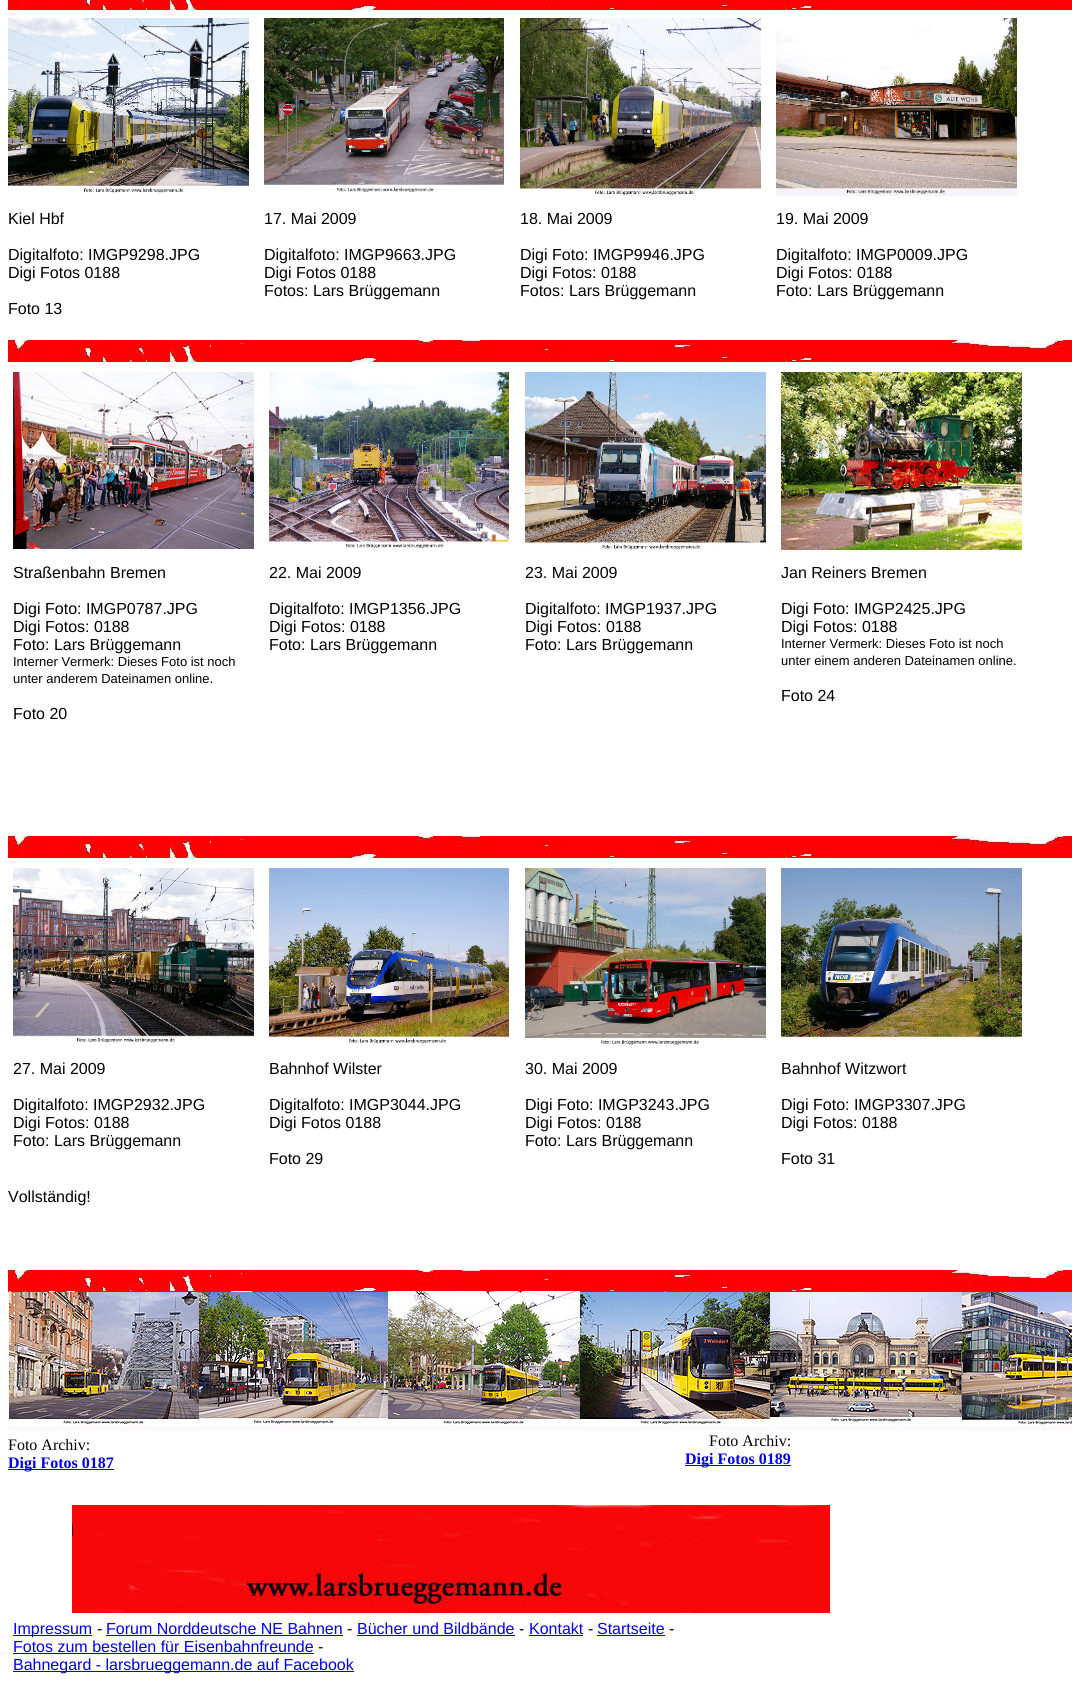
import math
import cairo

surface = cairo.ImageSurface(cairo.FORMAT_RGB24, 1072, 1687)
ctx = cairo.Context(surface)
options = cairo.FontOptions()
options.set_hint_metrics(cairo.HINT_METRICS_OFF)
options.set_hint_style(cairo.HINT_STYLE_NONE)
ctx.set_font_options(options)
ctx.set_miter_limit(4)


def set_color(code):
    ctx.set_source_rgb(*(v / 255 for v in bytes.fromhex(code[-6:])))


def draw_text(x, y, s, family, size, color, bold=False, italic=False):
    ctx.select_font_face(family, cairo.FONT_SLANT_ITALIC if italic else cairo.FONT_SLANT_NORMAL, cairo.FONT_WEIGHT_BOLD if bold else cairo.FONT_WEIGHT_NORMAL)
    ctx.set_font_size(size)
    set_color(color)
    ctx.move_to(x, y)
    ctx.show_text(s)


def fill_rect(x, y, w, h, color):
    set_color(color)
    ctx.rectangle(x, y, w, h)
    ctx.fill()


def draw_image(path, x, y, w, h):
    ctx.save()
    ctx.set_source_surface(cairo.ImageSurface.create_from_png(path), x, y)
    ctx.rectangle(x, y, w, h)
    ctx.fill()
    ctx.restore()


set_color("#ffffff")
ctx.paint()
draw_image("assets/img1.png", 8, 0, 1064, 10)
draw_image("assets/img2.png", 8, 18, 241, 175)
draw_image("assets/img3.png", 264, 18, 240, 174)
draw_image("assets/img4.png", 520, 18, 241, 177)
draw_image("assets/img5.png", 776, 18, 241, 178)
draw_text(8, 224, "Kiel Hbf", "Liberation Sans", 16, "#000000")
draw_text(8, 260, "Digitalfoto: IMGP9298.JPG", "Liberation Sans", 16, "#000000")
draw_text(8, 278, "Digi Fotos 0188", "Liberation Sans", 16, "#000000")
draw_text(8, 314, "Foto 13", "Liberation Sans", 16, "#000000")
draw_text(264, 224, "17. Mai 2009", "Liberation Sans", 16, "#000000")
draw_text(264, 260, "Digitalfoto: IMGP9663.JPG", "Liberation Sans", 16, "#000000")
draw_text(264, 278, "Digi Fotos 0188", "Liberation Sans", 16, "#000000")
draw_text(264, 296, "Fotos: Lars Brüggemann", "Liberation Sans", 16, "#000000")
draw_text(520, 224, "18. Mai 2009", "Liberation Sans", 16, "#000000")
draw_text(520, 260, "Digi Foto: IMGP9946.JPG", "Liberation Sans", 16, "#000000")
draw_text(520, 278, "Digi Fotos: 0188", "Liberation Sans", 16, "#000000")
draw_text(520, 296, "Fotos: Lars Brüggemann", "Liberation Sans", 16, "#000000")
draw_text(776, 224, "19. Mai 2009", "Liberation Sans", 16, "#000000")
draw_text(776, 260, "Digitalfoto: IMGP0009.JPG", "Liberation Sans", 16, "#000000")
draw_text(776, 278, "Digi Fotos: 0188", "Liberation Sans", 16, "#000000")
draw_text(776, 296, "Foto: Lars Brüggemann", "Liberation Sans", 16, "#000000")
draw_image("assets/img6.png", 8, 340, 1064, 22)
draw_image("assets/img7.png", 13, 372, 241, 177)
draw_image("assets/img8.png", 269, 372, 240, 176)
draw_image("assets/img9.png", 525, 372, 241, 178)
draw_image("assets/img10.png", 781, 372, 241, 178)
draw_text(13, 578, "Straßenbahn Bremen", "Liberation Sans", 16, "#000000")
draw_text(13, 614, "Digi Foto: IMGP0787.JPG", "Liberation Sans", 16, "#000000")
draw_text(13, 632, "Digi Fotos: 0188", "Liberation Sans", 16, "#000000")
draw_text(13, 650, "Foto: Lars Brüggemann", "Liberation Sans", 16, "#000000")
draw_text(13, 666, "Interner Vermerk: Dieses Foto ist noch", "Liberation Sans", 13, "#000000")
draw_text(13, 683, "unter anderem Dateinamen online.", "Liberation Sans", 13, "#000000")
draw_text(13, 719, "Foto 20", "Liberation Sans", 16, "#000000")
draw_text(269, 578, "22. Mai 2009", "Liberation Sans", 16, "#000000")
draw_text(269, 614, "Digitalfoto: IMGP1356.JPG", "Liberation Sans", 16, "#000000")
draw_text(269, 632, "Digi Fotos: 0188", "Liberation Sans", 16, "#000000")
draw_text(269, 650, "Foto: Lars Brüggemann", "Liberation Sans", 16, "#000000")
draw_text(525, 578, "23. Mai 2009", "Liberation Sans", 16, "#000000")
draw_text(525, 614, "Digitalfoto: IMGP1937.JPG", "Liberation Sans", 16, "#000000")
draw_text(525, 632, "Digi Fotos: 0188", "Liberation Sans", 16, "#000000")
draw_text(525, 650, "Foto: Lars Brüggemann", "Liberation Sans", 16, "#000000")
draw_text(781, 578, "Jan Reiners Bremen", "Liberation Sans", 16, "#000000")
draw_text(781, 614, "Digi Foto: IMGP2425.JPG", "Liberation Sans", 16, "#000000")
draw_text(781, 632, "Digi Fotos: 0188", "Liberation Sans", 16, "#000000")
draw_text(781, 648, "Interner Vermerk: Dieses Foto ist noch", "Liberation Sans", 13, "#000000")
draw_text(781, 665, "unter einem anderen Dateinamen online.", "Liberation Sans", 13, "#000000")
draw_text(781, 701, "Foto 24", "Liberation Sans", 16, "#000000")
draw_image("assets/img6.png", 8, 836, 1064, 22)
draw_image("assets/img11.png", 13, 868, 241, 175)
draw_image("assets/img12.png", 269, 868, 240, 176)
draw_image("assets/img13.png", 525, 868, 241, 177)
draw_image("assets/img14.png", 781, 868, 241, 171)
draw_text(13, 1074, "27. Mai 2009", "Liberation Sans", 16, "#000000")
draw_text(13, 1110, "Digitalfoto: IMGP2932.JPG", "Liberation Sans", 16, "#000000")
draw_text(13, 1128, "Digi Fotos: 0188", "Liberation Sans", 16, "#000000")
draw_text(13, 1146, "Foto: Lars Brüggemann", "Liberation Sans", 16, "#000000")
draw_text(269, 1074, "Bahnhof Wilster", "Liberation Sans", 16, "#000000")
draw_text(269, 1110, "Digitalfoto: IMGP3044.JPG", "Liberation Sans", 16, "#000000")
draw_text(269, 1128, "Digi Fotos 0188", "Liberation Sans", 16, "#000000")
draw_text(269, 1164, "Foto 29", "Liberation Sans", 16, "#000000")
draw_text(525, 1074, "30. Mai 2009", "Liberation Sans", 16, "#000000")
draw_text(525, 1110, "Digi Foto: IMGP3243.JPG", "Liberation Sans", 16, "#000000")
draw_text(525, 1128, "Digi Fotos: 0188", "Liberation Sans", 16, "#000000")
draw_text(525, 1146, "Foto: Lars Brüggemann", "Liberation Sans", 16, "#000000")
draw_text(781, 1074, "Bahnhof Witzwort", "Liberation Sans", 16, "#000000")
draw_text(781, 1110, "Digi Foto: IMGP3307.JPG", "Liberation Sans", 16, "#000000")
draw_text(781, 1128, "Digi Fotos: 0188", "Liberation Sans", 16, "#000000")
draw_text(781, 1164, "Foto 31", "Liberation Sans", 16, "#000000")
draw_text(8, 1202, "Vollständig!", "Liberation Sans", 16, "#000000")
draw_image("assets/img15.png", 8, 1270, 1064, 161)
draw_text(8, 1450, "Foto Archiv:", "Liberation Serif", 16, "#000000")
fill_rect(8, 1469, 106, 1, "#0000ee")
draw_text(8, 1468, "Digi Fotos 0187", "Liberation Serif", 16, "#0000ee", bold=True)
draw_text(709, 1446, "Foto Archiv:", "Liberation Serif", 16, "#000000")
fill_rect(685, 1465, 106, 1, "#0000ee")
draw_text(685, 1464, "Digi Fotos 0189", "Liberation Serif", 16, "#0000ee", bold=True)
draw_image("assets/img16.png", 72, 1505, 758, 108)
fill_rect(13, 1635, 79, 1, "#0000ee")
draw_text(13, 1634, "Impressum", "Liberation Sans", 16, "#0000ee")
draw_text(97, 1634, "-", "Liberation Sans", 16, "#000000")
draw_text(106, 1634, "Forum Norddeutsche NE Bahnen", "Liberation Sans", 16, "#0000ee")
fill_rect(106, 1635, 237, 1, "#0000ee")
draw_text(347, 1634, "-", "Liberation Sans", 16, "#000000")
draw_text(357, 1634, "Bücher und Bildbände", "Liberation Sans", 16, "#0000ee")
fill_rect(357, 1635, 158, 1, "#0000ee")
draw_text(519, 1634, "-", "Liberation Sans", 16, "#000000")
draw_text(529, 1634, "Kontakt", "Liberation Sans", 16, "#0000ee")
fill_rect(529, 1635, 54, 1, "#0000ee")
draw_text(588, 1634, "-", "Liberation Sans", 16, "#000000")
draw_text(597, 1634, "Startseite", "Liberation Sans", 16, "#0000ee")
fill_rect(597, 1635, 68, 1, "#0000ee")
draw_text(669, 1634, "-", "Liberation Sans", 16, "#000000")
draw_text(13, 1652, "Fotos zum bestellen für Eisenbahnfreunde", "Liberation Sans", 16, "#0000ee")
fill_rect(13, 1653, 301, 1, "#0000ee")
draw_text(318, 1652, "-", "Liberation Sans", 16, "#000000")
fill_rect(13, 1671, 341, 1, "#0000ee")
draw_text(13, 1670, "Bahnegard - larsbrueggemann.de auf Facebook", "Liberation Sans", 16, "#0000ee")
surface.write_to_png("output.png")
